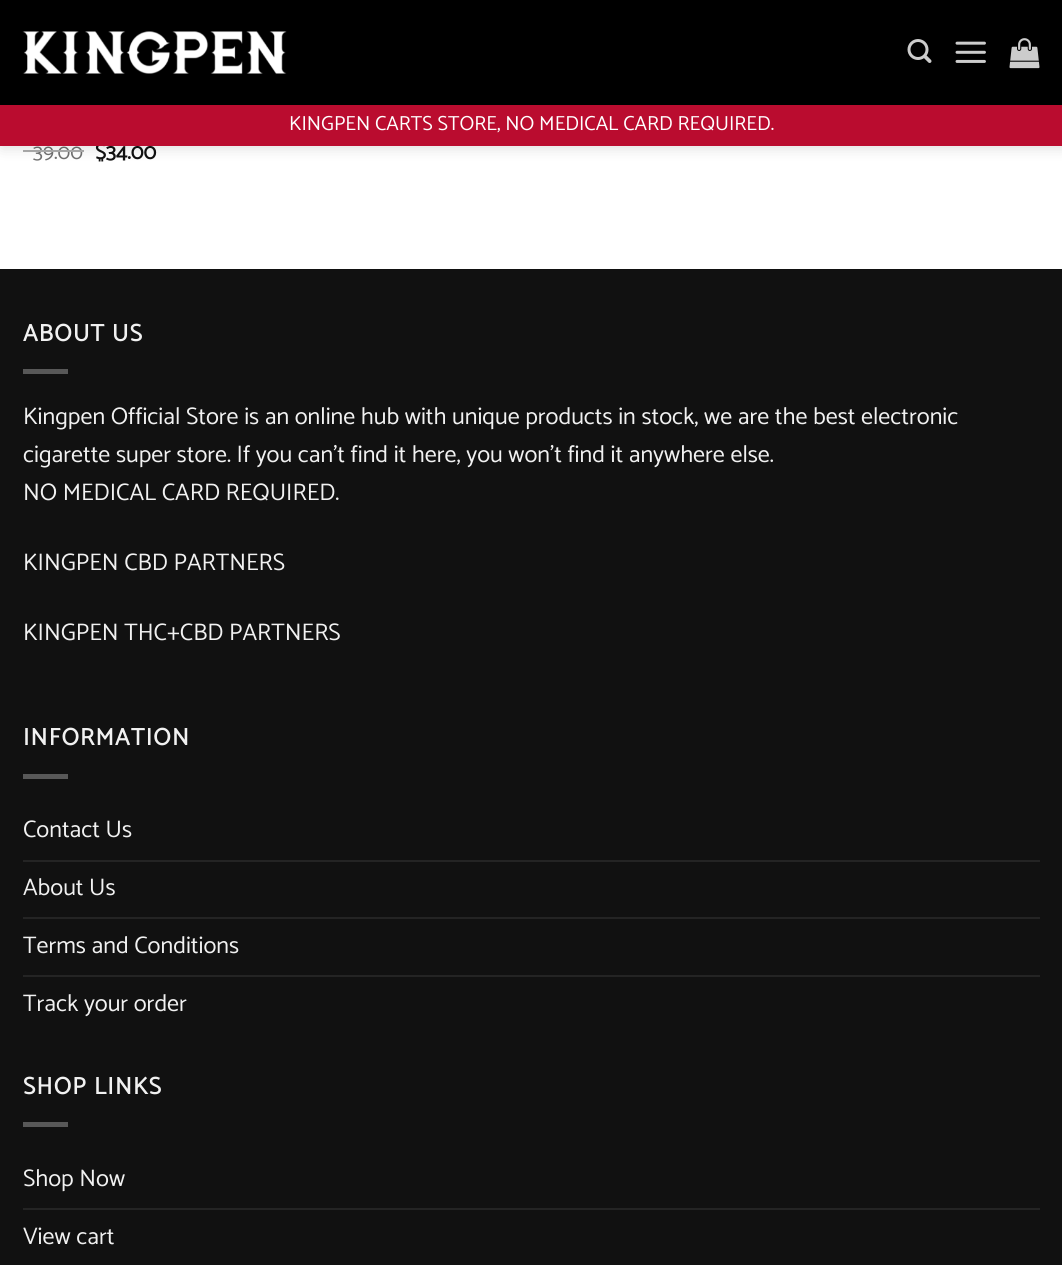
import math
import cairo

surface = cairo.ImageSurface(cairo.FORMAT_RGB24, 1062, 1265)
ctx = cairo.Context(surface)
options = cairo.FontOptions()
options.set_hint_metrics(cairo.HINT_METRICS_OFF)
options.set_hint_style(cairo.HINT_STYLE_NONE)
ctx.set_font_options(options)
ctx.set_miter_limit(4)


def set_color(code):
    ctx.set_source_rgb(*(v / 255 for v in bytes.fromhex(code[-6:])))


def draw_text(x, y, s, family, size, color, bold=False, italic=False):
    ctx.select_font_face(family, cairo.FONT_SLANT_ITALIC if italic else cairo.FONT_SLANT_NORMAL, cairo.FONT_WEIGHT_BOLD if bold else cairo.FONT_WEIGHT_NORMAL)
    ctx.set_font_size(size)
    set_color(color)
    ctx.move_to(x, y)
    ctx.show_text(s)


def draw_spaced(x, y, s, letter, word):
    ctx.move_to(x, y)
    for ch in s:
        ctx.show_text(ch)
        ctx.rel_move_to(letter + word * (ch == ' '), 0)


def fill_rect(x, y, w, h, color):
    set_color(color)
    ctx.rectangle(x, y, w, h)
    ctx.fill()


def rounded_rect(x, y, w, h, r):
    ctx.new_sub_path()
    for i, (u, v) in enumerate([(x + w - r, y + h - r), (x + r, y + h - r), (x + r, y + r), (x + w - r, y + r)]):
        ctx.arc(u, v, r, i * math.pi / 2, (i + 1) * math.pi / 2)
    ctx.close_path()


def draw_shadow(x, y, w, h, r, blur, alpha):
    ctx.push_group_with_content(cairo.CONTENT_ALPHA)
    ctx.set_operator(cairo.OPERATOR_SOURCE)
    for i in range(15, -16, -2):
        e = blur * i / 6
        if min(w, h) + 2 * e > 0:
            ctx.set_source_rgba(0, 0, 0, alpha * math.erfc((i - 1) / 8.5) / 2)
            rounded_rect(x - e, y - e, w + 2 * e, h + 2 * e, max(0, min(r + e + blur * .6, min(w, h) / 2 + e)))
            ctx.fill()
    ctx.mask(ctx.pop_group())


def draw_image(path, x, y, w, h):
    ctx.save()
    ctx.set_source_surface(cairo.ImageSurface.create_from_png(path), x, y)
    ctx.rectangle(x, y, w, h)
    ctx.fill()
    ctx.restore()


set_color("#ffffff")
ctx.paint()
fill_rect(23, 150, 10, 2, "#adadad")
draw_text(33, 159, "39.00", "Catamaran", 21.5, "#707070")
fill_rect(33, 150, 51, 2, "#adadad")
set_color("#000000")
draw_shadow(2, 2, 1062, 145, 0, 7.5, 0.15)
fill_rect(0, 0, 1062, 105, "#000000")
draw_image("assets/img1.png", 22, 31, 265, 43)
draw_image("assets/img2.png", 907, 39, 25, 24)
draw_image("assets/img3.png", 955, 41, 31, 22)
draw_image("assets/img4.png", 1009, 38, 31, 31)
draw_text(95, 159, "$34.00", "Catamaran", 21.5, "#111111", bold=True)
fill_rect(0, 105, 1062, 41, "#ba0c2f")
draw_text(289, 130, "KINGPEN CARTS STORE, NO MEDICAL CARD REQUIRED.", "Catamaran", 20.4, "#ffffff")
fill_rect(0, 269, 1062, 996, "#111111")
ctx.select_font_face("Catamaran", cairo.FONT_SLANT_NORMAL, cairo.FONT_WEIGHT_BOLD)
ctx.set_font_size(24)
set_color("#f1f1f1")
draw_spaced(23, 341, "ABOUT US", 1.25, 0)
fill_rect(23, 369, 45, 5, "#585858")
draw_text(23, 424, "Kingpen Official Store is an online hub with unique products in stock, we are the best electronic", "Catamaran", 24, "#f1f1f1")
draw_text(23, 462, "cigarette super store. If you can’t find it here, you won’t find it anywhere else.", "Catamaran", 24, "#f1f1f1")
draw_text(23, 500, "NO MEDICAL CARD REQUIRED.", "Catamaran", 24, "#f1f1f1")
draw_text(23, 570, "KINGPEN CBD PARTNERS", "Catamaran", 24, "#f1f1f1")
draw_text(23, 640, "KINGPEN THC+CBD PARTNERS", "Catamaran", 24, "#f1f1f1")
ctx.select_font_face("Catamaran", cairo.FONT_SLANT_NORMAL, cairo.FONT_WEIGHT_BOLD)
draw_spaced(23, 745, "INFORMATION", 1.25, 0)
fill_rect(23, 774, 45, 5, "#585858")
draw_text(23, 837, "Contact Us", "Catamaran", 24, "#f1f1f1")
fill_rect(23, 860, 1017, 2, "#242424")
draw_text(23, 895, "About Us", "Catamaran", 24, "#f1f1f1")
fill_rect(23, 917, 1017, 2, "#242424")
draw_text(23, 953, "Terms and Conditions", "Catamaran", 24, "#f1f1f1")
fill_rect(23, 975, 1017, 2, "#242424")
draw_text(23, 1011, "Track your order", "Catamaran", 24, "#f1f1f1")
ctx.select_font_face("Catamaran", cairo.FONT_SLANT_NORMAL, cairo.FONT_WEIGHT_BOLD)
draw_spaced(23, 1094, "SHOP LINKS", 1.25, 0)
fill_rect(23, 1122, 45, 5, "#585858")
draw_text(23, 1186, "Shop Now", "Catamaran", 24, "#f1f1f1")
fill_rect(23, 1208, 1017, 2, "#242424")
draw_text(23, 1244, "View cart", "Catamaran", 24, "#f1f1f1")
surface.write_to_png("output.png")
